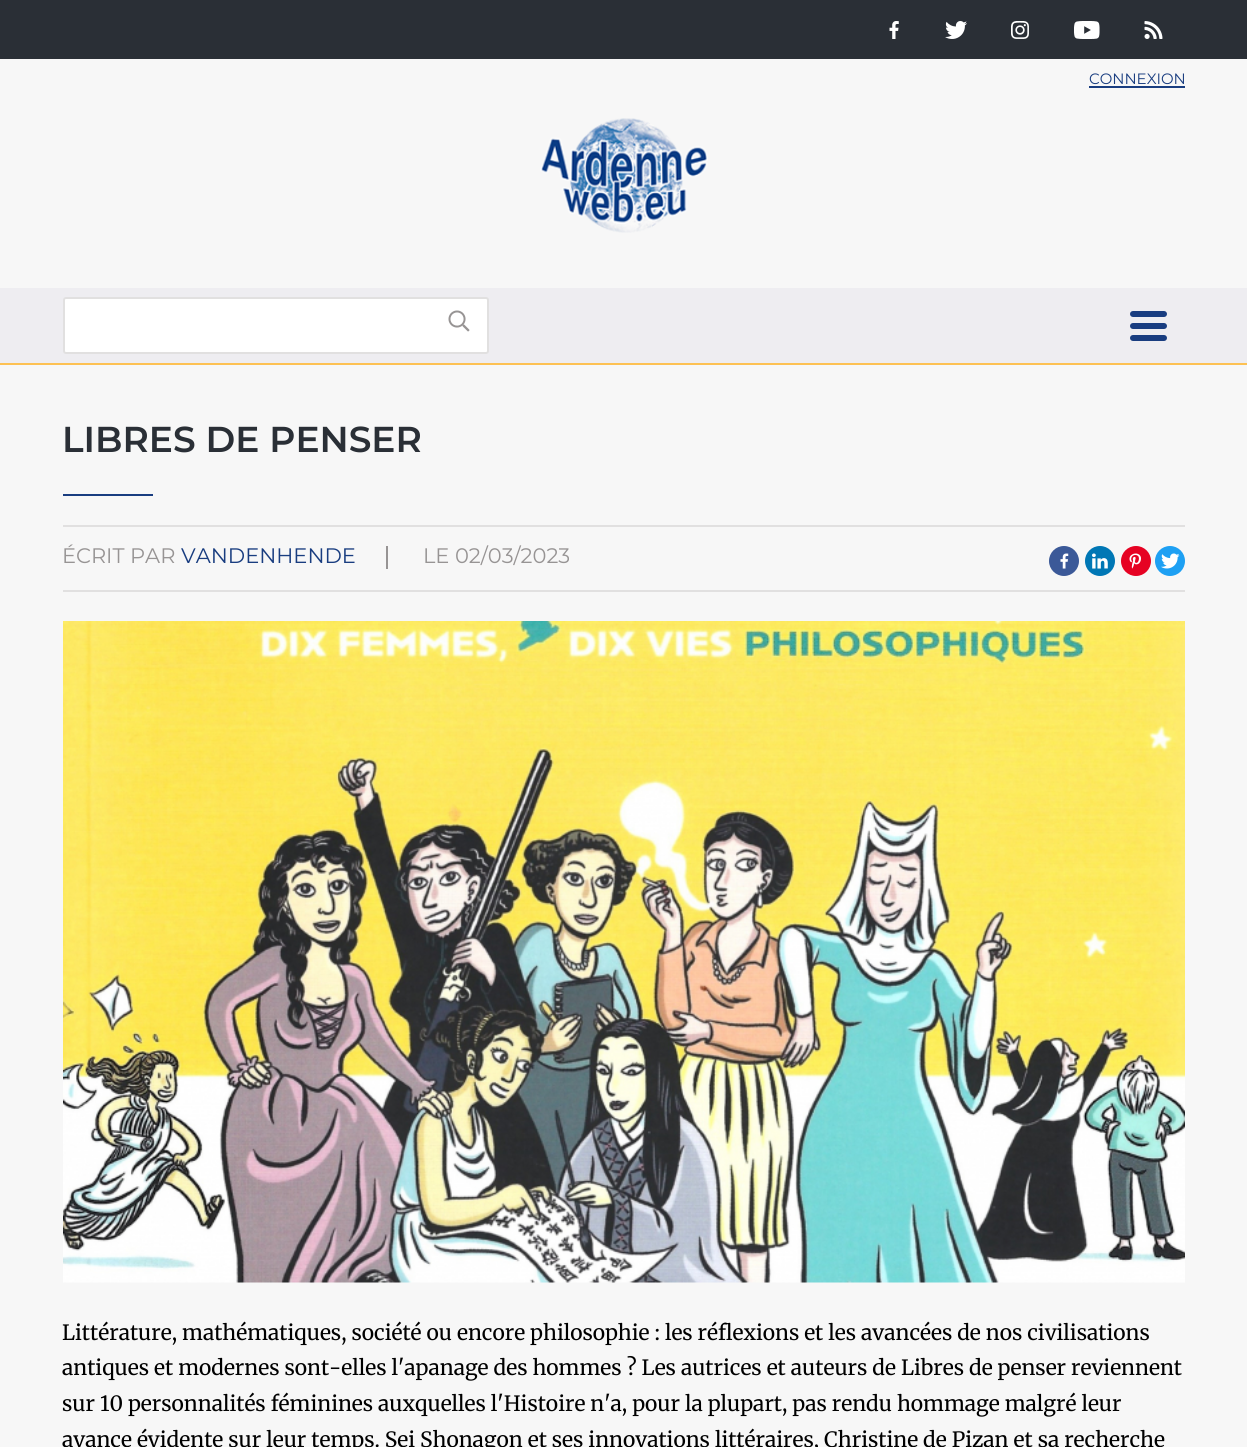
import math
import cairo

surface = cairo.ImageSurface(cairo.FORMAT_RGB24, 1247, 1447)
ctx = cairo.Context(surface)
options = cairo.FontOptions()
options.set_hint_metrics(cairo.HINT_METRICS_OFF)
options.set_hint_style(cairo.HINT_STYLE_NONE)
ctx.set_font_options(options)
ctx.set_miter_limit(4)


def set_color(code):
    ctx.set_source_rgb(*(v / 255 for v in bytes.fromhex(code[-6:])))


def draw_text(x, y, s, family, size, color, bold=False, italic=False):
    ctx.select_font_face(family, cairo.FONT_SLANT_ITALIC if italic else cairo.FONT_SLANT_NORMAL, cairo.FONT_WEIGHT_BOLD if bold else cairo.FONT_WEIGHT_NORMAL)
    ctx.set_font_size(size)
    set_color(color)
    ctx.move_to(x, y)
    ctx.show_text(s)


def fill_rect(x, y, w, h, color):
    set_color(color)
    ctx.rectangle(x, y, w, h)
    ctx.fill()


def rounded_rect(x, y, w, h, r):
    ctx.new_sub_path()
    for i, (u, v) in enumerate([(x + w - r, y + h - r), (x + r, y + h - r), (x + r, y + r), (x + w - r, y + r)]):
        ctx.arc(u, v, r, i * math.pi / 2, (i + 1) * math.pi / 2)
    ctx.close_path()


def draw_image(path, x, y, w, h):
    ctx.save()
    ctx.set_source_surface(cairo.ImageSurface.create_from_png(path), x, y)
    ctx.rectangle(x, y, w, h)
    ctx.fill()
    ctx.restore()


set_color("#f7f7f7")
ctx.paint()
fill_rect(0, 0, 1247, 59, "#2a2f36")
draw_image("assets/img1.png", 889, 21, 10, 18)
draw_image("assets/img2.png", 945, 21, 22, 18)
draw_image("assets/img3.png", 1011, 21, 18, 18)
draw_image("assets/img4.png", 1074, 21, 26, 18)
draw_image("assets/img5.png", 1144, 21, 19, 18)
draw_text(1089, 84, "CONNEXION", "Montserrat", 15, "#193d80")
fill_rect(1089, 86, 96, 2, "#193d80")
draw_image("assets/img6.png", 540, 118, 168, 115)
fill_rect(0, 288, 1247, 75, "#eeedf1")
fill_rect(0, 363, 1247, 2, "#fdc153")
set_color("#ffffff")
rounded_rect(64, 298, 424, 55, 2)
ctx.fill_preserve()
set_color("#e1e0e0")
ctx.stroke()
draw_image("assets/img7.png", 448, 310, 22, 22)
set_color("#193d80")
rounded_rect(1130, 323, 37, 6, 3)
ctx.fill()
rounded_rect(1130, 311, 37, 6, 3)
ctx.fill()
rounded_rect(1130, 335, 37, 6, 3)
ctx.fill()
fill_rect(63, 525, 1122, 2, "#e1e0e0")
draw_text(62, 452, "LIBRES DE PENSER", "Montserrat SemiBold", 36, "#2a2f36")
fill_rect(63, 494, 90, 2, "#193d80")
draw_text(62, 563, "ÉCRIT PAR", "Montserrat", 21, "#979494")
draw_text(181, 563, "VANDENHENDE", "Montserrat", 21, "#193d80")
fill_rect(386, 546, 2, 23, "#979494")
draw_text(423, 563, "LE 02/03/2023", "Montserrat", 21, "#979494")
set_color("#3b5998")
ctx.new_path()
ctx.arc(1064, 561, 15, 0, 2 * math.pi)
ctx.fill()
draw_image("assets/img8.png", 1060, 553, 9, 16)
set_color("#0077b5")
ctx.arc(1100, 561, 15, 0, 2 * math.pi)
ctx.fill()
draw_image("assets/img9.png", 1092, 553, 16, 16)
set_color("#e60223")
ctx.arc(1136, 561, 15, 0, 2 * math.pi)
ctx.fill()
draw_image("assets/img10.png", 1129, 553, 12, 16)
set_color("#1ea0f3")
ctx.arc(1170, 561, 15, 0, 2 * math.pi)
ctx.fill()
draw_image("assets/img11.png", 1161, 553, 19, 16)
fill_rect(63, 590, 1122, 2, "#e1e0e0")
draw_image("assets/img12.png", 63, 621, 1122, 662)
draw_text(62, 1340, "Littérature, mathématiques, société ou encore philosophie : les réflexions et les avancées de nos civilisations", "Merriweather Light", 21, "#000000")
draw_text(62, 1375, "antiques et modernes sont-elles l'apanage des hommes ? Les autrices et auteurs de Libres de penser reviennent", "Merriweather Light", 21, "#000000")
draw_text(62, 1411, "sur 10 personnalités féminines auxquelles l'Histoire n'a, pour la plupart, pas rendu hommage malgré leur", "Merriweather Light", 21, "#000000")
draw_text(62, 1447, "avance évidente sur leur temps. Sei Shonagon et ses innovations littéraires, Christine de Pizan et sa recherche", "Merriweather Light", 21, "#000000")
surface.write_to_png("output.png")
